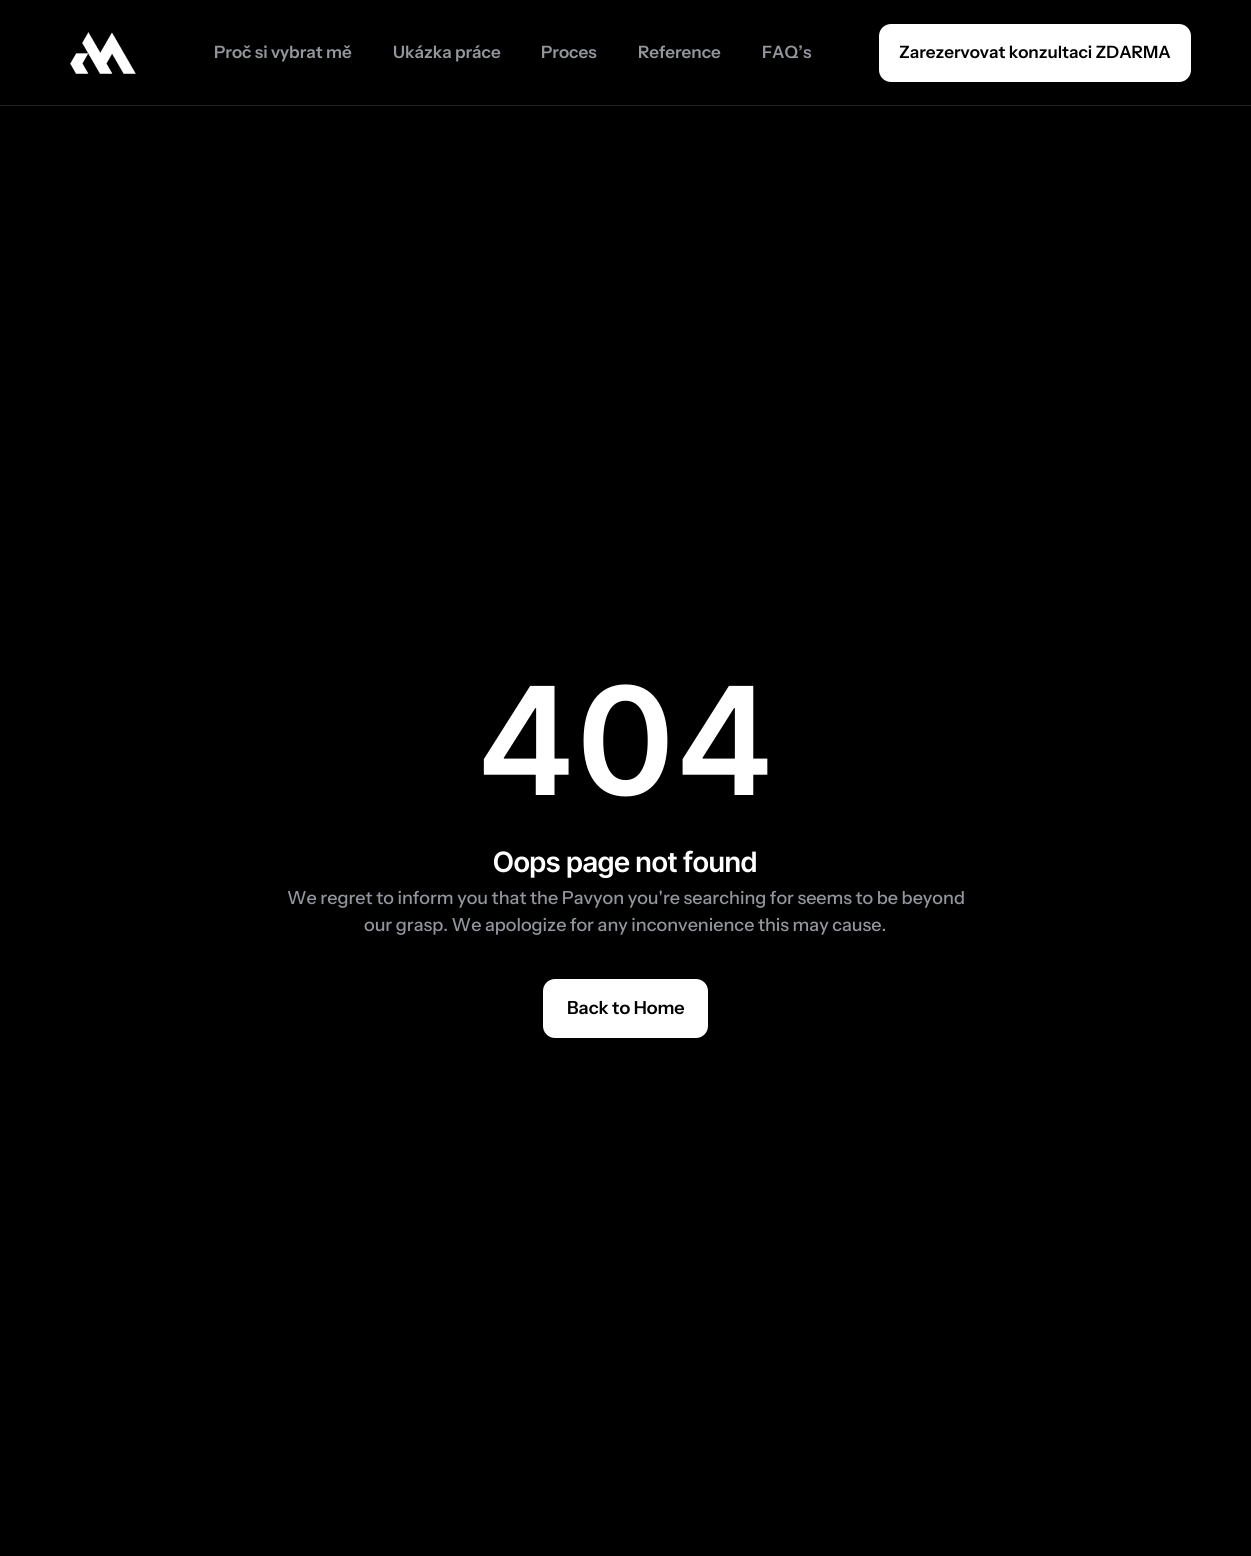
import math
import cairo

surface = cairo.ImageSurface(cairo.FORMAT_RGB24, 1251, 1556)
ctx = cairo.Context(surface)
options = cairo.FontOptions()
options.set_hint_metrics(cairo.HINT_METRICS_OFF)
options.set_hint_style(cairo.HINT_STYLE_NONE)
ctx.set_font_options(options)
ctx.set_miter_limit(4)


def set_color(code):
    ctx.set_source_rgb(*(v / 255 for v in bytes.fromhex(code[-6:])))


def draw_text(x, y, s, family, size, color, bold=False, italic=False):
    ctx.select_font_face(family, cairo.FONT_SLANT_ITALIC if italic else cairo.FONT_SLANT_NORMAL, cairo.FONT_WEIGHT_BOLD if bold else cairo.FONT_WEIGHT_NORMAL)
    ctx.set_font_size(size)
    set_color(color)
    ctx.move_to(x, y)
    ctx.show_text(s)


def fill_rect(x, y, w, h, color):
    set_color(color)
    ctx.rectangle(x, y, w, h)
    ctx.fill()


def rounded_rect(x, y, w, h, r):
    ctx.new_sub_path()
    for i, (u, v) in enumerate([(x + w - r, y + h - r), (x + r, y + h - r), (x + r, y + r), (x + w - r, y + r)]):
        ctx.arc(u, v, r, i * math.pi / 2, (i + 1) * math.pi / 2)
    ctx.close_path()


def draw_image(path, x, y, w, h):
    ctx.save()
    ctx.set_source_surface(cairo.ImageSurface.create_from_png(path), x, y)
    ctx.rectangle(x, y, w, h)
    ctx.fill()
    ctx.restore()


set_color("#000000")
ctx.paint()
draw_image("assets/img1.png", 70, 32, 66, 42)
draw_text(214, 58, "Proč si vybrat mě", "Instrument Sans SemiBold", 17, "#94969d")
draw_text(393, 58, "Ukázka práce", "Instrument Sans SemiBold", 17, "#94969d")
draw_text(541, 58, "Proces", "Instrument Sans SemiBold", 17, "#94969d")
draw_text(638, 58, "Reference", "Instrument Sans SemiBold", 17, "#94969d")
draw_text(762, 58, "FAQ’s", "Instrument Sans SemiBold", 17, "#94969d")
set_color("#ffffff")
rounded_rect(879, 24, 312, 58, 12)
ctx.fill()
draw_text(899, 58, "Zarezervovat konzultaci ZDARMA", "Instrument Sans SemiBold", 17, "#000000")
fill_rect(0, 105, 1251, 1, "#1d1d20")
draw_text(476, 795, "404", "Inter SemiBold", 150, "#ffffff")
draw_text(493, 872, "Oops page not found", "Inter Tight SemiBold", 28, "#ffffff")
draw_text(287, 904, "We regret to inform you that the Pavyon you're searching for seems to be beyond", "Instrument Sans Medium", 18, "#94969d")
draw_text(364, 931, "our grasp. We apologize for any inconvenience this may cause.", "Instrument Sans Medium", 18, "#94969d")
set_color("#ffffff")
rounded_rect(543, 979, 165, 59, 12)
ctx.fill()
draw_text(567, 1014, "Back to Home", "Instrument Sans SemiBold", 18, "#000000")
surface.write_to_png("output.png")
